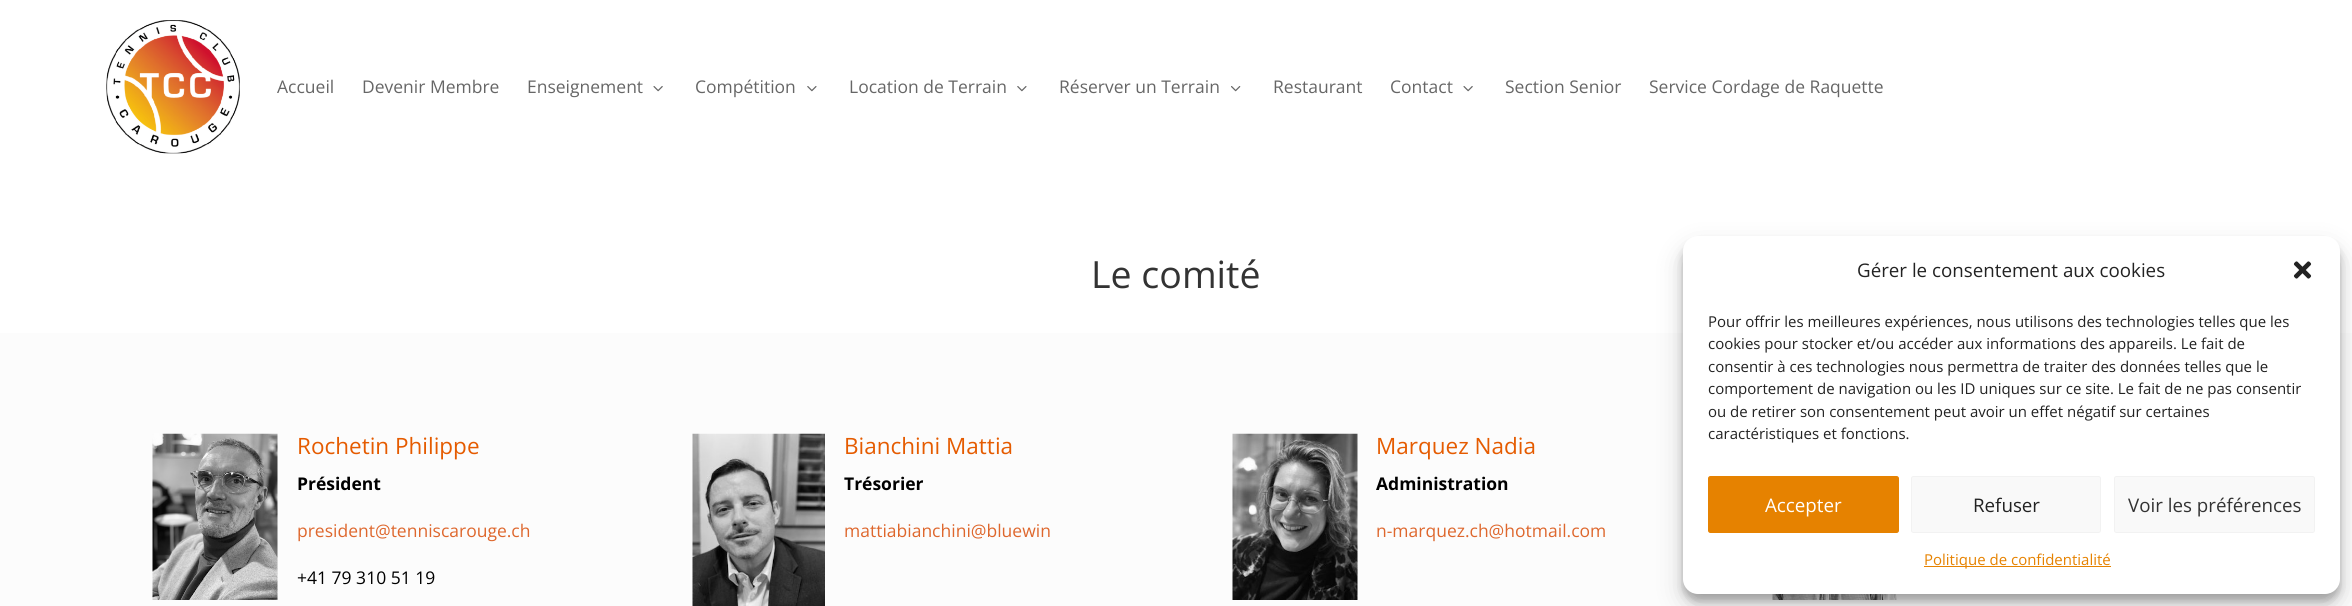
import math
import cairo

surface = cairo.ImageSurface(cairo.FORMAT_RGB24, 2352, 606)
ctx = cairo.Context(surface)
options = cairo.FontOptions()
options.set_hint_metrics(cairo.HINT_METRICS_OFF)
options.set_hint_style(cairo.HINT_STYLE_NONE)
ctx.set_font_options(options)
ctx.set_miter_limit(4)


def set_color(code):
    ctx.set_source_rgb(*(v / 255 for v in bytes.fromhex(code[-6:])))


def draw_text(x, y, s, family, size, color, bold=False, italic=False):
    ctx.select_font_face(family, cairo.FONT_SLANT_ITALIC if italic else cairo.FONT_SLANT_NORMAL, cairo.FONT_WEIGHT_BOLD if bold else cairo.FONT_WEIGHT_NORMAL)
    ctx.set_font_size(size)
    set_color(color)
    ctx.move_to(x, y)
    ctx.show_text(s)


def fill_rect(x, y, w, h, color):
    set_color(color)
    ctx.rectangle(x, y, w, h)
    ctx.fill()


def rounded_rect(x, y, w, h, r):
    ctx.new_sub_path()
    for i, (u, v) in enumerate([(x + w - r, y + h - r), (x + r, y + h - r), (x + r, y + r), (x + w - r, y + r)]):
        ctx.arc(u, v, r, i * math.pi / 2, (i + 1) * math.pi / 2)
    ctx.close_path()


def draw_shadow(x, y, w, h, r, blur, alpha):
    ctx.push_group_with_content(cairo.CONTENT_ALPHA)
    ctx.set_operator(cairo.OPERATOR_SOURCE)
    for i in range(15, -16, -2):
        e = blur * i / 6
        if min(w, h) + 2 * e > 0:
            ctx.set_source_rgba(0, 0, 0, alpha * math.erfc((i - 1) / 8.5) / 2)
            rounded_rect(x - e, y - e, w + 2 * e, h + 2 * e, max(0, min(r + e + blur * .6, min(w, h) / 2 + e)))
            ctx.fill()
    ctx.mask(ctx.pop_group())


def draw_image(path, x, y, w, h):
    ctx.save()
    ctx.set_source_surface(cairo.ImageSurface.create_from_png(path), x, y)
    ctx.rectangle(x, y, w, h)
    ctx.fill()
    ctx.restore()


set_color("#ffffff")
ctx.paint()
draw_image("assets/img1.png", 106, 20, 134, 134)
draw_text(277, 93, "Accueil", "Open Sans", 17.5, "#666666")
draw_text(362, 93, "Devenir Membre", "Open Sans", 17.5, "#666666")
draw_text(527, 93, "Enseignement", "Open Sans", 17.5, "#666666")
draw_image("assets/img2.png", 653, 86, 10, 6)
draw_text(695, 93, "Compétition", "Open Sans", 17.5, "#666666")
draw_image("assets/img3.png", 807, 86, 10, 6)
draw_text(849, 93, "Location de Terrain", "Open Sans", 17.5, "#666666")
draw_image("assets/img3.png", 1017, 86, 10, 6)
draw_text(1059, 93, "Réserver un Terrain", "Open Sans", 17.5, "#666666")
draw_image("assets/img4.png", 1231, 86, 10, 6)
draw_text(1273, 93, "Restaurant", "Open Sans", 17.5, "#666666")
draw_text(1390, 93, "Contact", "Open Sans", 17.5, "#666666")
draw_image("assets/img2.png", 1463, 86, 10, 6)
draw_text(1505, 93, "Section Senior", "Open Sans", 17.5, "#666666")
draw_text(1649, 93, "Service Cordage de Raquette", "Open Sans", 17.5, "#666666")
draw_text(1091, 288, "Le comité", "Open Sans", 37.5, "#333333")
fill_rect(0, 333, 2352, 273, "#fcfcfc")
draw_image("assets/img5.png", 152, 433, 126, 167)
draw_text(297, 454, "Rochetin Philippe", "Open Sans", 22.5, "#e55b00")
draw_text(297, 490, "Président", "Open Sans", 17.5, "#000000", bold=True)
draw_text(297, 537, "president@tenniscarouge.ch", "Open Sans", 17.5, "#de672d")
draw_text(297, 584, "+41 79 310 51 19", "Open Sans", 17.5, "#000000")
draw_image("assets/img6.png", 692, 433, 133, 173)
draw_text(844, 454, "Bianchini Mattia", "Open Sans", 22.5, "#e55b00")
draw_text(844, 490, "Trésorier", "Open Sans", 17.5, "#000000", bold=True)
draw_text(844, 537, "mattiabianchini@bluewin", "Open Sans", 17.5, "#de672d")
draw_image("assets/img7.png", 1232, 433, 126, 167)
draw_text(1376, 454, "Marquez Nadia", "Open Sans", 22.5, "#e55b00")
draw_text(1376, 490, "Administration", "Open Sans", 17.5, "#000000", bold=True)
draw_text(1376, 537, "n-marquez.ch@hotmail.com", "Open Sans", 17.5, "#de672d")
draw_image("assets/img8.png", 1772, 594, 125, 6)
set_color("#000000")
draw_shadow(1683, 244, 657, 357, 15, 4, 0.23)
draw_shadow(1683, 249, 657, 357, 15, 12.5, 0.19)
set_color("#ffffff")
rounded_rect(1683, 236, 657, 358, 15)
ctx.fill()
draw_text(1857, 277, "Gérer le consentement aux cookies", "Open Sans", 18.75, "#222222")
draw_image("assets/img9.png", 2293, 261, 19, 18)
draw_text(1708, 327, "Pour offrir les meilleures expériences, nous utilisons des technologies telles que les", "Open Sans", 15, "#222222")
draw_text(1708, 349, "cookies pour stocker et/ou accéder aux informations des appareils. Le fait de", "Open Sans", 15, "#222222")
draw_text(1708, 372, "consentir à ces technologies nous permettra de traiter des données telles que le", "Open Sans", 15, "#222222")
draw_text(1708, 394, "comportement de navigation ou les ID uniques sur ce site. Le fait de ne pas consentir", "Open Sans", 15, "#222222")
draw_text(1708, 417, "ou de retirer son consentement peut avoir un effet négatif sur certaines", "Open Sans", 15, "#222222")
draw_text(1708, 439, "caractéristiques et fonctions.", "Open Sans", 15, "#222222")
set_color("#e68200")
rounded_rect(1708.5, 476.5, 190, 56, 2)
ctx.fill_preserve()
ctx.set_line_width(1)
ctx.stroke()
draw_text(1765, 512, "Accepter", "Open Sans", 18.75, "#ffffff")
set_color("#f9f9f9")
rounded_rect(1911.5, 476.5, 189, 56, 2)
ctx.fill_preserve()
set_color("#f2f2f2")
ctx.stroke()
draw_text(1973, 512, "Refuser", "Open Sans", 18.75, "#222222")
set_color("#f9f9f9")
rounded_rect(2114.5, 476.5, 200, 56, 2)
ctx.fill_preserve()
set_color("#f2f2f2")
ctx.stroke()
draw_text(2128, 512, "Voir les préférences", "Open Sans", 18.75, "#333333")
fill_rect(1924, 566, 187, 1, "#e68200")
draw_text(1924, 565, "Politique de confidentialité", "Open Sans", 15, "#e68200")
surface.write_to_png("output.png")
